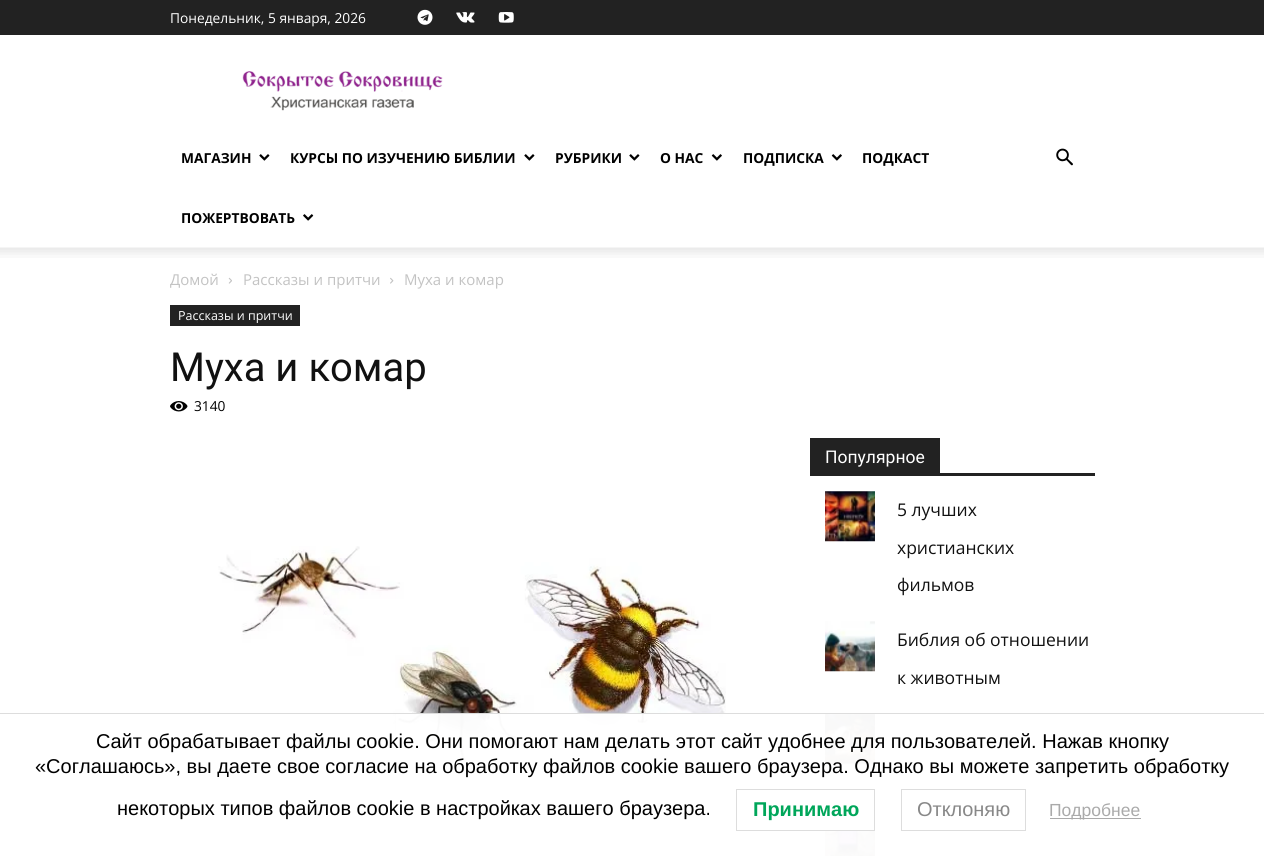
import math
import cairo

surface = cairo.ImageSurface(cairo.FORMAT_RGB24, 1264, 856)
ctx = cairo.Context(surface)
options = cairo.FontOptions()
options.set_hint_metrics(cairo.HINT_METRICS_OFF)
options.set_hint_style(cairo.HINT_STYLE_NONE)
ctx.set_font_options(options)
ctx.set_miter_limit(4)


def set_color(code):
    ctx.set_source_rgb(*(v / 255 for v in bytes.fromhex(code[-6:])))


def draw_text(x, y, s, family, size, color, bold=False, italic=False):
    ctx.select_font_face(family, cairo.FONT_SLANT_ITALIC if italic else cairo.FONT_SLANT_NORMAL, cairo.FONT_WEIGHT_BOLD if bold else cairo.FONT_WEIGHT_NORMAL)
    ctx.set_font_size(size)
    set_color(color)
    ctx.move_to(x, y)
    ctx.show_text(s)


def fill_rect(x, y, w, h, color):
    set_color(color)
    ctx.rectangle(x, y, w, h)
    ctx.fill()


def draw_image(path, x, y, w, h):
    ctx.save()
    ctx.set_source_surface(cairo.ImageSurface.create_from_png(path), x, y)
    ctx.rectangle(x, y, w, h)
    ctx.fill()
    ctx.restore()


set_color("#ffffff")
ctx.paint()
fill_rect(0, 0, 1264, 35, "#222222")
draw_text(170, 23, "Понедельник, 5 января, 2026", "Open Sans", 13.75, "#ffffff")
draw_image("assets/img1.png", 417, 9, 16, 16)
draw_image("assets/img2.png", 456, 12, 19, 11)
draw_image("assets/img3.png", 498, 12, 16, 11)
draw_image("assets/img4.png", 242, 71, 201, 40)
draw_text(181, 163, "МАГАЗИН", "Open Sans", 13.75, "#000000", bold=True)
draw_image("assets/img5.png", 259, 154, 11, 7)
draw_text(290, 163, "КУРСЫ ПО ИЗУЧЕНИЮ БИБЛИИ", "Open Sans", 13.75, "#000000", bold=True)
draw_image("assets/img5.png", 524, 154, 11, 7)
draw_text(555, 163, "РУБРИКИ", "Open Sans", 13.75, "#000000", bold=True)
draw_image("assets/img5.png", 629, 154, 11, 7)
draw_text(660, 163, "О НАС", "Open Sans", 13.75, "#000000", bold=True)
draw_image("assets/img6.png", 711, 154, 11, 7)
draw_text(743, 163, "ПОДПИСКА", "Open Sans", 13.75, "#000000", bold=True)
draw_image("assets/img6.png", 831, 154, 11, 7)
draw_text(862, 163, "ПОДКАСТ", "Open Sans", 13.75, "#000000", bold=True)
draw_text(181, 223, "ПОЖЕРТВОВАТЬ", "Open Sans", 13.75, "#000000", bold=True)
draw_image("assets/img7.png", 303, 214, 11, 7)
draw_image("assets/img8.png", 1056, 148, 17, 18)
draw_image("assets/img9.png", 0, 247, 1264, 11)
draw_text(170, 285, "Домой", "Open Sans", 15, "#c3c3c3")
draw_image("assets/img10.png", 228, 277, 4, 7)
draw_text(243, 285, "Рассказы и притчи", "Open Sans", 15, "#c3c3c3")
draw_image("assets/img11.png", 390, 277, 4, 7)
draw_text(404, 285, "Муха и комар", "Open Sans", 15, "#c3c3c3")
fill_rect(170, 305, 130, 21, "#222222")
draw_text(178, 320, "Рассказы и притчи", "Open Sans", 12.5, "#ffffff")
draw_text(170, 381, "Муха и комар", "Roboto", 40, "#111111")
draw_image("assets/img12.png", 170, 401, 18, 11)
draw_text(194, 411, "3140", "Open Sans", 13.75, "#000000")
draw_image("assets/img13.png", 218, 546, 508, 218)
fill_rect(810, 473, 285, 3, "#222222")
fill_rect(810, 438, 130, 35, "#222222")
draw_text(825, 463, "Популярное", "Roboto", 17.5, "#ffffff")
draw_image("assets/img14.png", 825, 491, 50, 51)
draw_text(897, 516, "5 лучших", "Open Sans", 17.5, "#111111")
draw_text(897, 554, "христианских", "Open Sans", 17.5, "#111111")
draw_text(897, 591, "фильмов", "Open Sans", 17.5, "#111111")
draw_image("assets/img15.png", 825, 621, 50, 51)
draw_text(897, 646, "Библия об отношении", "Open Sans", 17.5, "#111111")
draw_text(897, 684, "к животным", "Open Sans", 17.5, "#111111")
draw_image("assets/img16.png", 825, 714, 50, 51)
draw_image("assets/img17.png", 825, 831, 50, 25)
ctx.set_source_rgba(1, 1, 1, 0.97)
ctx.rectangle(396, 714, 479, 142)
ctx.fill()
fill_rect(0, 713, 1264, 1, "#dddddd")
draw_text(96, 748, "Сайт обрабатывает файлы cookie. Они помогают нам делать этот сайт удобнее для пользователей. Нажав кнопку", "Liberation Sans", 20, "#000000")
draw_text(35, 773, "«Соглашаюсь», вы даете свое согласие на обработку файлов cookie вашего браузера. Однако вы можете запретить обработку", "Liberation Sans", 20, "#000000")
draw_text(117, 815, "некоторых типов файлов cookie в настройках вашего браузера.", "Liberation Sans", 20, "#000000")
ctx.rectangle(736.5, 789.5, 138, 41)
set_color("#dddddd")
ctx.set_line_width(1)
ctx.stroke()
draw_text(753, 816, "Принимаю", "Liberation Sans", 20, "#00a65a", bold=True)
ctx.rectangle(901.5, 789.5, 124, 41)
set_color("#dddddd")
ctx.stroke()
draw_text(917, 816, "Отклоняю", "Liberation Sans", 20, "#888888")
fill_rect(1050, 818, 91, 1, "#aaaaaa")
draw_text(1049, 816, "Подробнее", "Liberation Sans", 17.5, "#aaaaaa")
surface.write_to_png("output.png")
